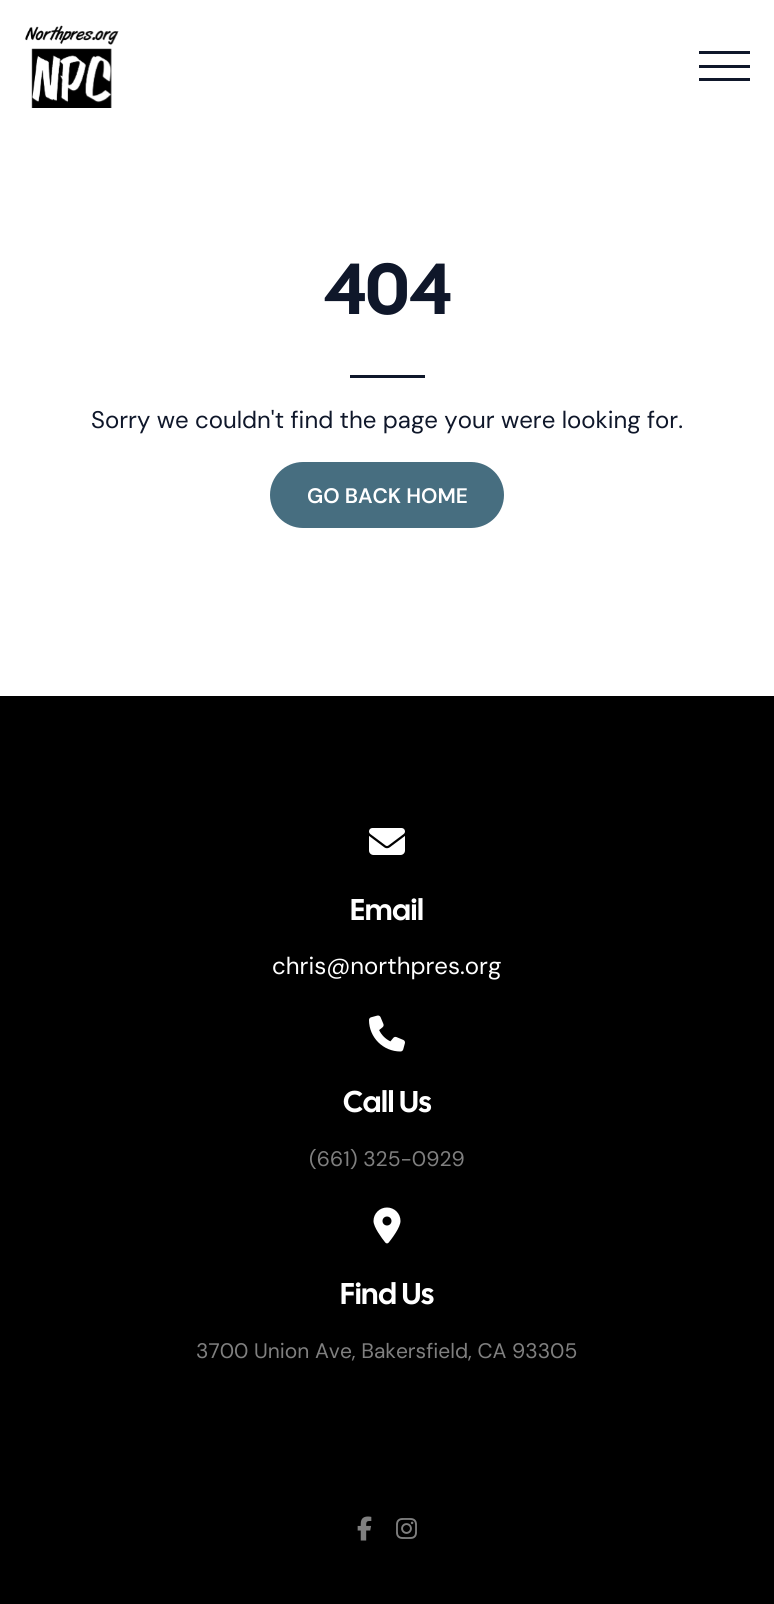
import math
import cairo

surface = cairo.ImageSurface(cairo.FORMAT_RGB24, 774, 1604)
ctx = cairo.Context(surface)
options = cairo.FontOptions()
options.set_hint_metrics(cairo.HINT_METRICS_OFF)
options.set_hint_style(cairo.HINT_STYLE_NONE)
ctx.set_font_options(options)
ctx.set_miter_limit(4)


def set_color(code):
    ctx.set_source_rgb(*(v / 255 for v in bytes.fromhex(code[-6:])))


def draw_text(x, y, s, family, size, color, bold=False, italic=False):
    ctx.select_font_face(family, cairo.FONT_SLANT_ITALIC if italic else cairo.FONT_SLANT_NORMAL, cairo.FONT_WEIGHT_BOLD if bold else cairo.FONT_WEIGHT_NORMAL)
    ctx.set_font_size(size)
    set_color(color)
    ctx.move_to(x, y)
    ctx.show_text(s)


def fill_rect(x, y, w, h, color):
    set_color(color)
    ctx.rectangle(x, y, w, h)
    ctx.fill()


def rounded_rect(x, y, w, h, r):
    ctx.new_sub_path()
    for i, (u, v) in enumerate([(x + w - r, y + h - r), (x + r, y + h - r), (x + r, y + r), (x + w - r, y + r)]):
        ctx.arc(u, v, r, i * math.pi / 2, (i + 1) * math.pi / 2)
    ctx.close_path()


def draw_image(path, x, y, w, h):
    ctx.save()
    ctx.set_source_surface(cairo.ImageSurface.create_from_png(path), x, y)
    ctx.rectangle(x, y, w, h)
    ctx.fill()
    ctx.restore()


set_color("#ffffff")
ctx.paint()
draw_image("assets/img1.png", 25, 25, 94, 83)
fill_rect(699, 51, 51, 3, "#0f172a")
fill_rect(699, 65, 51, 3, "#0f172a")
fill_rect(699, 78, 51, 3, "#0f172a")
draw_text(324, 314, "404", "Cal Sans", 72, "#0f172a")
fill_rect(350, 375, 75, 3, "#0f172a")
draw_text(91, 428, "Sorry we couldn't find the page your were looking for.", "DM Sans", 24, "#0f172a")
set_color("#476e80")
rounded_rect(270, 462, 234, 66, 33)
ctx.fill()
draw_text(307, 503, "GO BACK HOME", "DM Sans SemiBold", 21, "#ffffff")
fill_rect(0, 696, 774, 908, "#000000")
draw_image("assets/img2.png", 369, 828, 36, 27)
draw_text(350, 920, "Email", "Cal Sans", 30, "#ffffff")
draw_text(272, 974, "chris@northpres.org", "DM Sans", 24, "#ffffff")
draw_image("assets/img3.png", 369, 1015, 36, 37)
draw_text(343, 1112, "Call Us", "Cal Sans", 30, "#ffffff")
draw_text(309, 1166, "(661) 325-0929", "DM Sans", 21, "#808080")
draw_image("assets/img4.png", 373, 1207, 28, 37)
draw_text(340, 1304, "Find Us", "Cal Sans", 30, "#ffffff")
draw_text(196, 1358, "3700 Union Ave, Bakersfield, CA 93305", "DM Sans", 21, "#808080")
draw_image("assets/img5.png", 357, 1516, 15, 25)
draw_image("assets/img6.png", 396, 1518, 21, 21)
surface.write_to_png("output.png")
